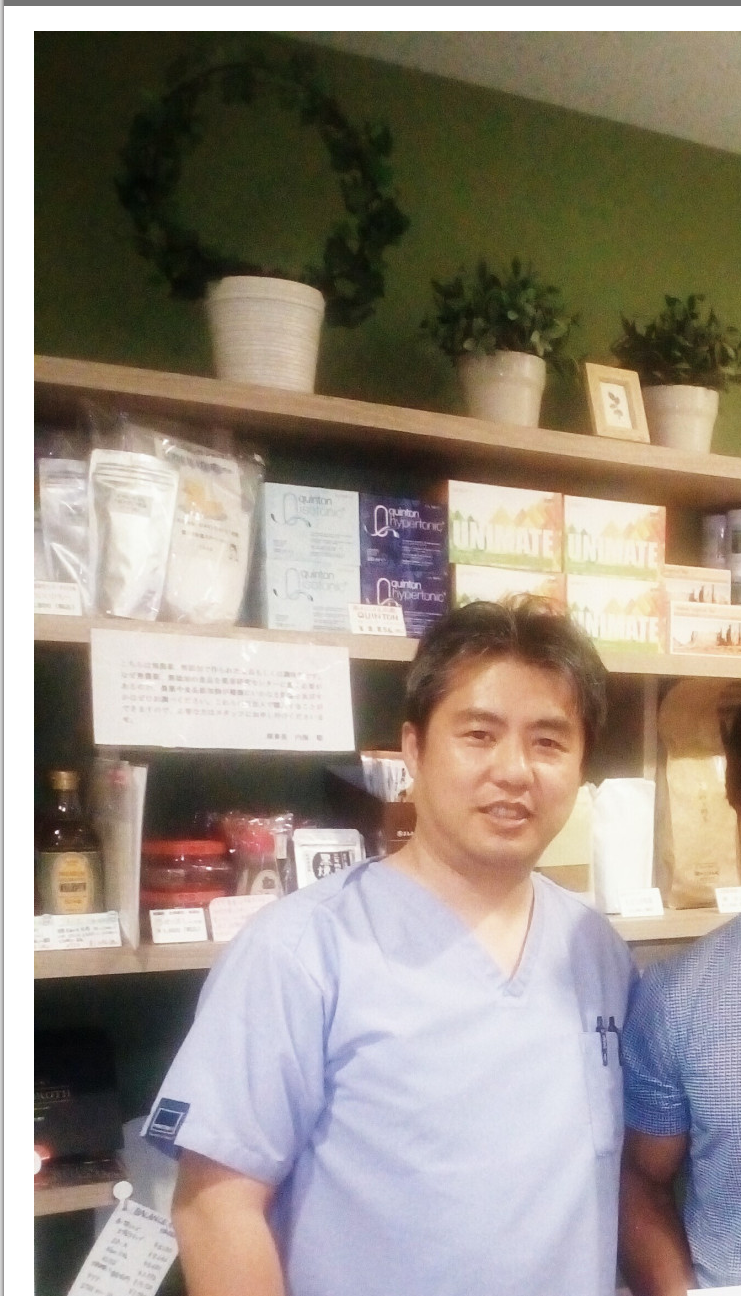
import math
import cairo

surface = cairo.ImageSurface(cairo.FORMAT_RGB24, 741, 1296)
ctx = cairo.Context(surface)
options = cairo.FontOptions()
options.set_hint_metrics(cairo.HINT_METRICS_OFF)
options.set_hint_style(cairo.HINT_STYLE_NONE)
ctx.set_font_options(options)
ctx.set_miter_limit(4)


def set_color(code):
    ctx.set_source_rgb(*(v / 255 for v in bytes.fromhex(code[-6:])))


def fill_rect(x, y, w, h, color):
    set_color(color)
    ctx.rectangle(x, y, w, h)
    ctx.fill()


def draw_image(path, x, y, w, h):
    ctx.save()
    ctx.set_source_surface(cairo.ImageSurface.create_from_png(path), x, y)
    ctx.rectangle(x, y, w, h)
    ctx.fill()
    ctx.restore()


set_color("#d7d7d7")
ctx.paint()
draw_image("assets/img1.png", 0, 0, 741, 1296)
fill_rect(4, 0, 737, 6, "#747474")
draw_image("assets/img2.png", 34, 31, 707, 1265)
surface.write_to_png("output.png")
